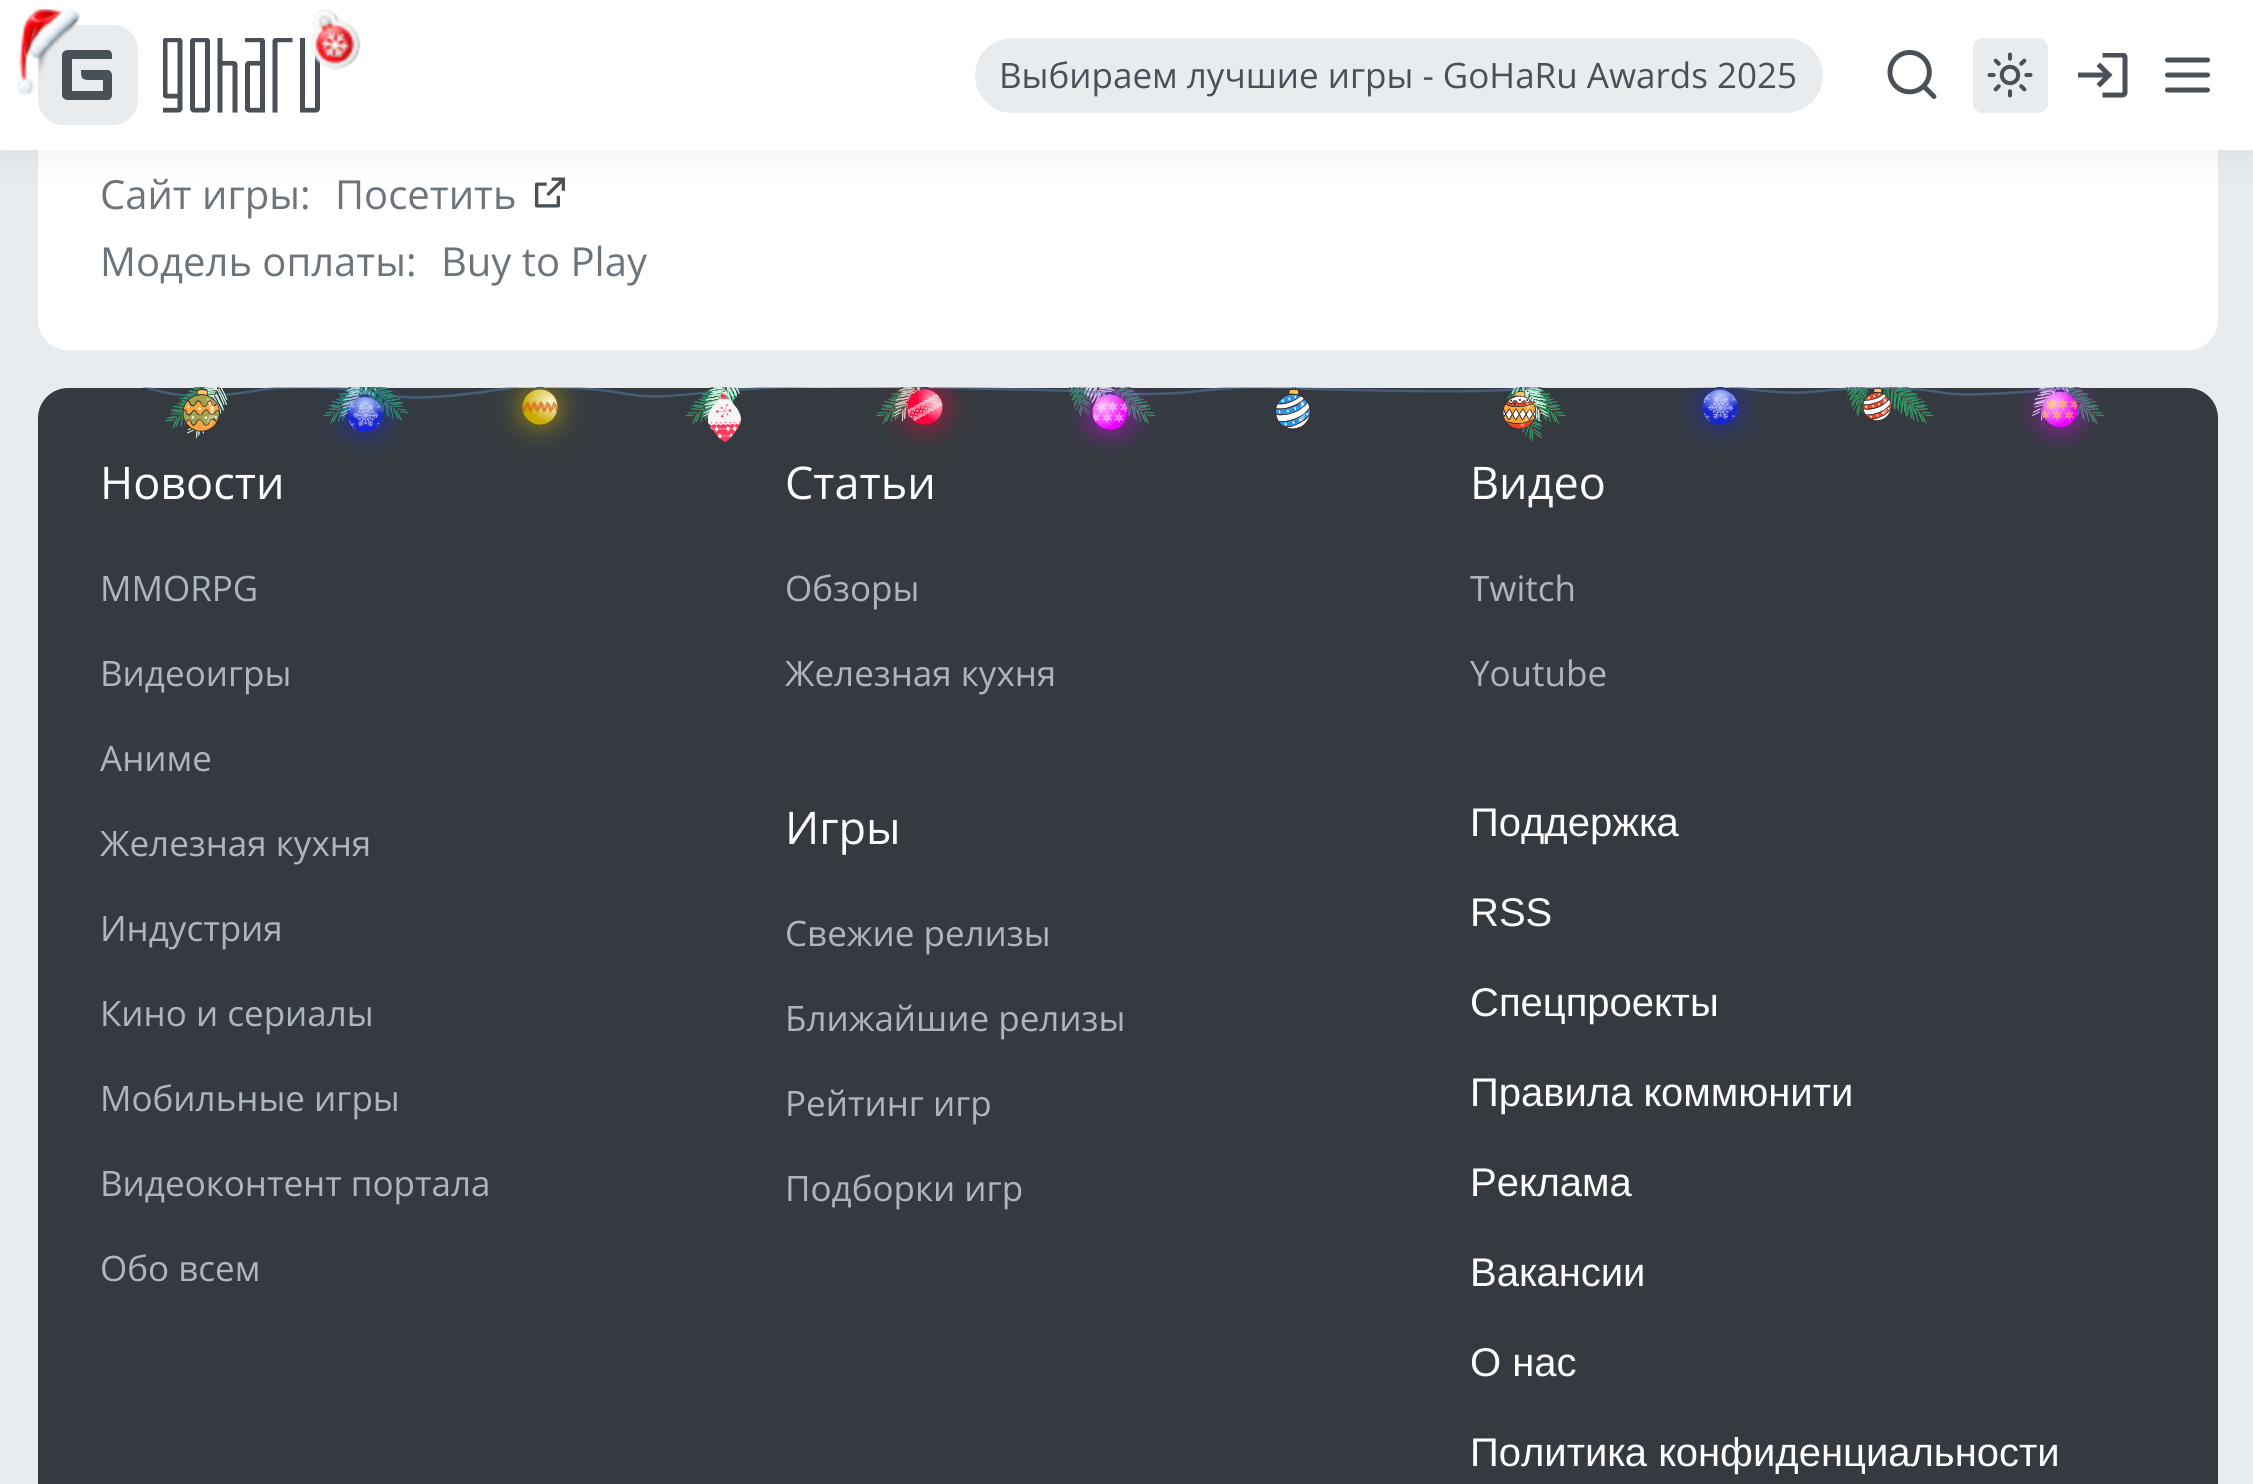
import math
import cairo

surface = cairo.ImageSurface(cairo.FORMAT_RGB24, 2253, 1484)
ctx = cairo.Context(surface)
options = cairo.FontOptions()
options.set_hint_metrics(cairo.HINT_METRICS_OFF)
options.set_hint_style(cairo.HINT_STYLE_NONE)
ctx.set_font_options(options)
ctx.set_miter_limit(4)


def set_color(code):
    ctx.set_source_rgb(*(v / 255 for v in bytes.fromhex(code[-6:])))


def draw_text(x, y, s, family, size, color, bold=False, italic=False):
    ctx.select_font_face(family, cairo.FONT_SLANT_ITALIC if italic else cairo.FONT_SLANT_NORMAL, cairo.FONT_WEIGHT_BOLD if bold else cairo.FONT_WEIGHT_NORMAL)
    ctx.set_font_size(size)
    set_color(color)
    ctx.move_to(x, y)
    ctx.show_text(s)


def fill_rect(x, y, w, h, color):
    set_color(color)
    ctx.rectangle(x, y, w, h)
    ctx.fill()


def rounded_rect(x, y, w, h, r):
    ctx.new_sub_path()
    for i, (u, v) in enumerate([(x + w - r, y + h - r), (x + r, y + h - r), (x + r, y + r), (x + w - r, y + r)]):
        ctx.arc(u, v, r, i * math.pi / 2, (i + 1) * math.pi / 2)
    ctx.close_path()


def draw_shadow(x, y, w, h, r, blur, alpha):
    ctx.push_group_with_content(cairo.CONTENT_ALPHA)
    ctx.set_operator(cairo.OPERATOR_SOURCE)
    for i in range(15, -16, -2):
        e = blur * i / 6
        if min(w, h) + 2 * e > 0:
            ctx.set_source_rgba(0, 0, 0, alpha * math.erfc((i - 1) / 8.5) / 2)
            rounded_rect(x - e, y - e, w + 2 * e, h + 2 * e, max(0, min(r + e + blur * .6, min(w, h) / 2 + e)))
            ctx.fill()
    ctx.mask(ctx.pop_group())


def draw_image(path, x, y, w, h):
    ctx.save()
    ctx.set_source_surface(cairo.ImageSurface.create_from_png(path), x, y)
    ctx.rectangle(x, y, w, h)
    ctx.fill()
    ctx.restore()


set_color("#e9ecef")
ctx.paint()
set_color("#ffffff")
rounded_rect(38, -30, 2180, 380, 30)
ctx.fill()
draw_image("assets/img8.png", 535, 177, 30, 31)
set_color("#000000")
draw_shadow(0, 10, 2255, 150, 0, 15, 0.05)
fill_rect(0, 0, 2253, 150, "#ffffff")
set_color("#e9ecef")
rounded_rect(38, 25, 100, 100, 25)
ctx.fill()
set_color("#495057")
ctx.new_path()
ctx.move_to(62, 95)
ctx.line_to(62, 55)
ctx.curve_to(62, 52, 65, 50, 68, 50)
ctx.line_to(108, 50)
ctx.curve_to(110, 50, 112, 52, 112, 55)
ctx.line_to(112, 59)
ctx.line_to(72, 59)
ctx.line_to(72, 91)
ctx.line_to(103, 91)
ctx.line_to(103, 80)
ctx.line_to(89, 80)
ctx.curve_to(81, 80, 81, 77, 81, 70)
ctx.line_to(108, 70)
ctx.curve_to(110, 70, 112, 73, 112, 75)
ctx.line_to(112, 95)
ctx.curve_to(112, 98, 110, 100, 108, 100)
ctx.line_to(68, 100)
ctx.curve_to(65, 100, 62, 98, 62, 95)
ctx.close_path()
ctx.fill()
draw_image("assets/img1.png", 17, 9, 64, 86)
draw_image("assets/img3.png", 163, 38, 157, 75)
draw_image("assets/img2.png", 310, 9, 51, 61)
set_color("#e9ecef")
rounded_rect(975, 38, 848, 75, 37.5)
ctx.fill()
draw_text(999, 88, "Выбираем лучшие игры - GoHaRu Awards 2025", "Open Sans", 35, "#495057")
draw_image("assets/img4.png", 1887, 50, 50, 49)
set_color("#e9ecef")
rounded_rect(1973, 38, 75, 75, 10)
ctx.fill()
draw_image("assets/img5.png", 1987, 52, 46, 46)
draw_image("assets/img6.png", 2078, 53, 50, 45)
draw_image("assets/img7.png", 2165, 57, 45, 36)
draw_text(100, 209, "Сайт игры:", "Open Sans", 40, "#6c757d")
draw_text(335, 209, "Посетить", "Open Sans", 40, "#6c757d")
draw_text(100, 276, "Модель оплаты:", "Open Sans", 40, "#6c757d")
draw_text(441, 276, "Buy to Play", "Open Sans", 40, "#6c757d")
set_color("#343a40")
ctx.new_path()
ctx.move_to(68, 388)
ctx.line_to(2188, 388)
ctx.curve_to(2204.5, 388, 2218, 401.5, 2218, 418)
ctx.line_to(2218, 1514)
ctx.line_to(38, 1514)
ctx.line_to(38, 418)
ctx.curve_to(38, 401.5, 51.5, 388, 68, 388)
ctx.close_path()
ctx.fill()
draw_image("assets/img9.png", 142, 387, 1963, 68)
draw_text(100, 499, "Новости", "Open Sans", 45, "#ffffff")
draw_text(100, 601, "MMORPG", "Open Sans", 35, "#adb5bd")
draw_text(100, 686, "Видеоигры", "Open Sans", 35, "#adb5bd")
draw_text(100, 771, "Аниме", "Open Sans", 35, "#adb5bd")
draw_text(100, 856, "Железная кухня", "Open Sans", 35, "#adb5bd")
draw_text(100, 941, "Индустрия", "Open Sans", 35, "#adb5bd")
draw_text(100, 1026, "Кино и сериалы", "Open Sans", 35, "#adb5bd")
draw_text(100, 1111, "Мобильные игры", "Open Sans", 35, "#adb5bd")
draw_text(100, 1196, "Видеоконтент портала", "Open Sans", 35, "#adb5bd")
draw_text(100, 1281, "Обо всем", "Open Sans", 35, "#adb5bd")
draw_text(785, 499, "Статьи", "Open Sans", 45, "#ffffff")
draw_text(785, 601, "Обзоры", "Open Sans", 35, "#adb5bd")
draw_text(785, 686, "Железная кухня", "Open Sans", 35, "#adb5bd")
draw_text(1470, 499, "Видео", "Open Sans", 45, "#ffffff")
draw_text(1470, 601, "Twitch", "Open Sans", 35, "#adb5bd")
draw_text(1470, 686, "Youtube", "Open Sans", 35, "#adb5bd")
draw_text(785, 844, "Игры", "Open Sans", 45, "#ffffff")
draw_text(785, 946, "Свежие релизы", "Open Sans", 35, "#adb5bd")
draw_text(785, 1031, "Ближайшие релизы", "Open Sans", 35, "#adb5bd")
draw_text(785, 1116, "Рейтинг игр", "Open Sans", 35, "#adb5bd")
draw_text(785, 1201, "Подборки игр", "Open Sans", 35, "#adb5bd")
draw_text(1470, 836, "Поддержка", "Liberation Sans", 40, "#ffffff")
draw_text(1470, 926, "RSS", "Liberation Sans", 40, "#ffffff")
draw_text(1470, 1016, "Спецпроекты", "Liberation Sans", 40, "#ffffff")
draw_text(1470, 1106, "Правила коммюнити", "Liberation Sans", 40, "#ffffff")
draw_text(1470, 1196, "Реклама", "Liberation Sans", 40, "#ffffff")
draw_text(1470, 1286, "Вакансии", "Liberation Sans", 40, "#ffffff")
draw_text(1470, 1376, "О нас", "Liberation Sans", 40, "#ffffff")
draw_text(1470, 1466, "Политика конфиденциальности", "Liberation Sans", 40, "#ffffff")
surface.write_to_png("output.png")
